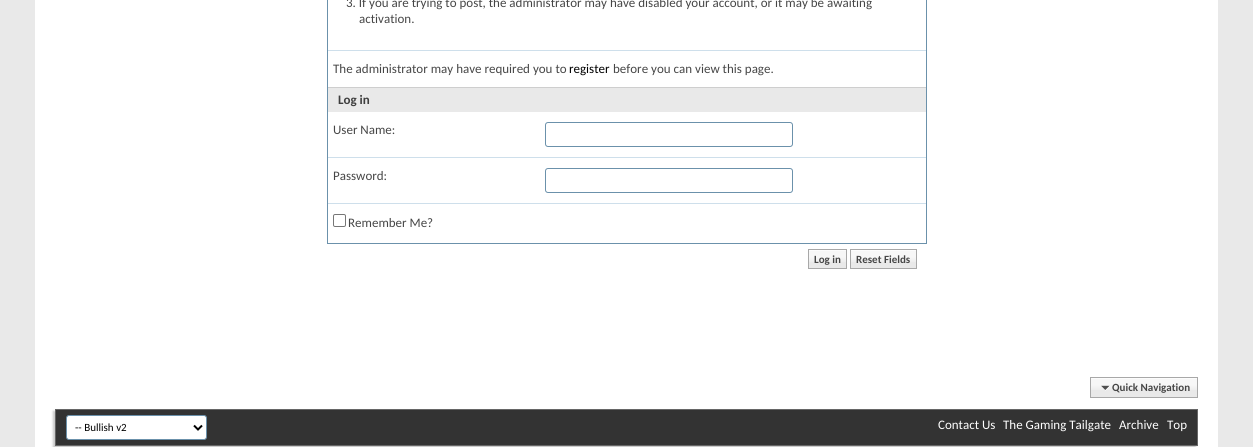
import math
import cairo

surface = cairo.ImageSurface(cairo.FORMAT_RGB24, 1253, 447)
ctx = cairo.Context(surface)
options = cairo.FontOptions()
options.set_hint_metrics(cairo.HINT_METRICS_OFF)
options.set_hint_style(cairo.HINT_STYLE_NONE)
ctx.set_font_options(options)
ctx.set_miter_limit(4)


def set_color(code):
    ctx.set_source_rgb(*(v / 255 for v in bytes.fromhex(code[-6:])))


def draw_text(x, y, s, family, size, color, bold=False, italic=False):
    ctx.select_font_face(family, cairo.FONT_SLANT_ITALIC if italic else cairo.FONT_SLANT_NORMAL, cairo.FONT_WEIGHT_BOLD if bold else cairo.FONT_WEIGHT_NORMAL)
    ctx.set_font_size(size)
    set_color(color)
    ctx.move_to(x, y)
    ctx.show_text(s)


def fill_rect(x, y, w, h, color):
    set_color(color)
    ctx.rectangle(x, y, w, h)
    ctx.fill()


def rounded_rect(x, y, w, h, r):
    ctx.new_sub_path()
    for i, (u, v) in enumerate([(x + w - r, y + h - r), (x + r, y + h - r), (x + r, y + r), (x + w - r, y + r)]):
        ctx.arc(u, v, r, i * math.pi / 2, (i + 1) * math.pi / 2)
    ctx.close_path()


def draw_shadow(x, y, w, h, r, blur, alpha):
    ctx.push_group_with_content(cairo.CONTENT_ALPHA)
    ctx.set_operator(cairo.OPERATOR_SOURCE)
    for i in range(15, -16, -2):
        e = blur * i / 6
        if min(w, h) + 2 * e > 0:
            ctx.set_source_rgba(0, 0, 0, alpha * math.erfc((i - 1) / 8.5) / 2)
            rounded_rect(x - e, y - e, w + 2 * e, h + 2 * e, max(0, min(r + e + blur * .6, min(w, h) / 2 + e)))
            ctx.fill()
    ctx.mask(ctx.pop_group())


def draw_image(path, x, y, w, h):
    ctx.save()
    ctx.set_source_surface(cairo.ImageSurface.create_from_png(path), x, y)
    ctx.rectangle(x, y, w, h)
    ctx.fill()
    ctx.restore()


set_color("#e9e9e9")
ctx.paint()
fill_rect(35, 0, 1183, 447, "#ffffff")
fill_rect(926, 0, 1, 244, "#6b91ab")
fill_rect(327, 243, 600, 1, "#6b91ab")
fill_rect(327, 0, 1, 244, "#6b91ab")
draw_text(346, 7, "3. If you are trying to post, the administrator may have disabled your account, or it may be awaiting", "Carlito", 13, "#464646")
draw_text(359, 23, "activation.", "Carlito", 13, "#464646")
fill_rect(328, 50, 598, 1, "#cedfeb")
draw_text(333, 73, "The administrator may have required you to", "Carlito", 13, "#464646")
draw_text(569, 73, "register", "Carlito", 13, "#000000")
draw_text(613, 73, "before you can view this page.", "Carlito", 13, "#464646")
fill_rect(328, 88, 598, 24, "#e9e9e9")
fill_rect(328, 87, 598, 1, "#cecece")
draw_text(338, 104, "Log in", "Carlito", 13, "#3e3e3e", bold=True)
draw_text(333, 134, "User Name:", "Carlito", 13, "#464646")
rounded_rect(545.5, 122.5, 247, 24, 2.5)
set_color("#6b91ab")
ctx.set_line_width(1)
ctx.stroke()
fill_rect(328, 157, 598, 1, "#cedfeb")
draw_text(333, 180, "Password:", "Carlito", 13, "#464646")
rounded_rect(545.5, 168.5, 247, 24, 2.5)
set_color("#6b91ab")
ctx.stroke()
fill_rect(328, 203, 598, 1, "#cedfeb")
rounded_rect(333.5, 214.5, 12, 12, 1.5)
set_color("#767676")
ctx.stroke()
draw_text(348, 227, "Remember Me?", "Carlito", 13, "#464646")
fill_rect(809, 250, 37, 18, "#e9e9e9")
draw_image("assets/img1.png", 809, 250, 37, 12)
ctx.rectangle(808.5, 249.5, 38, 19)
set_color("#a8a8a8")
ctx.stroke()
draw_text(814, 263, "Log in", "Carlito", 11, "#464646", bold=True)
fill_rect(851, 250, 65, 18, "#e9e9e9")
draw_image("assets/img2.png", 851, 250, 65, 12)
ctx.rectangle(850.5, 249.5, 66, 19)
set_color("#a8a8a8")
ctx.stroke()
draw_text(856, 263, "Reset Fields", "Carlito", 11, "#464646", bold=True)
fill_rect(1091, 378, 106, 19, "#e9e9e9")
draw_image("assets/img3.png", 1091, 378, 106, 12)
ctx.rectangle(1090.5, 377.5, 107, 20)
set_color("#a8a8a8")
ctx.stroke()
draw_image("assets/img4.png", 1101, 385, 9, 6)
draw_text(1112, 391, "Quick Navigation", "Carlito", 11, "#464646", bold=True)
set_color("#c8c8c8")
draw_shadow(53, 411, 1143, 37, 0, 1, 1)
set_color("#333333")
ctx.rectangle(55.5, 409.5, 1142, 36)
ctx.fill_preserve()
set_color("#666666")
ctx.stroke()
set_color("#ffffff")
rounded_rect(66.5, 415.5, 140, 24, 2.5)
ctx.fill_preserve()
set_color("#6b91ab")
ctx.stroke()
ctx.new_path()
ctx.move_to(194, 425.5)
ctx.line_to(198, 429.5)
ctx.line_to(202, 425.5)
set_color("#000000")
ctx.set_line_width(2)
ctx.stroke()
draw_text(75, 431, "-- Bullish v2", "Carlito", 11, "#000000")
draw_text(938, 429, "Contact Us", "Carlito", 13, "#ffffff")
draw_text(1003, 429, "The Gaming Tailgate", "Carlito", 13, "#ffffff")
draw_text(1119, 429, "Archive", "Carlito", 13, "#ffffff")
draw_text(1167, 429, "Top", "Carlito", 13, "#ffffff")
surface.write_to_png("output.png")
